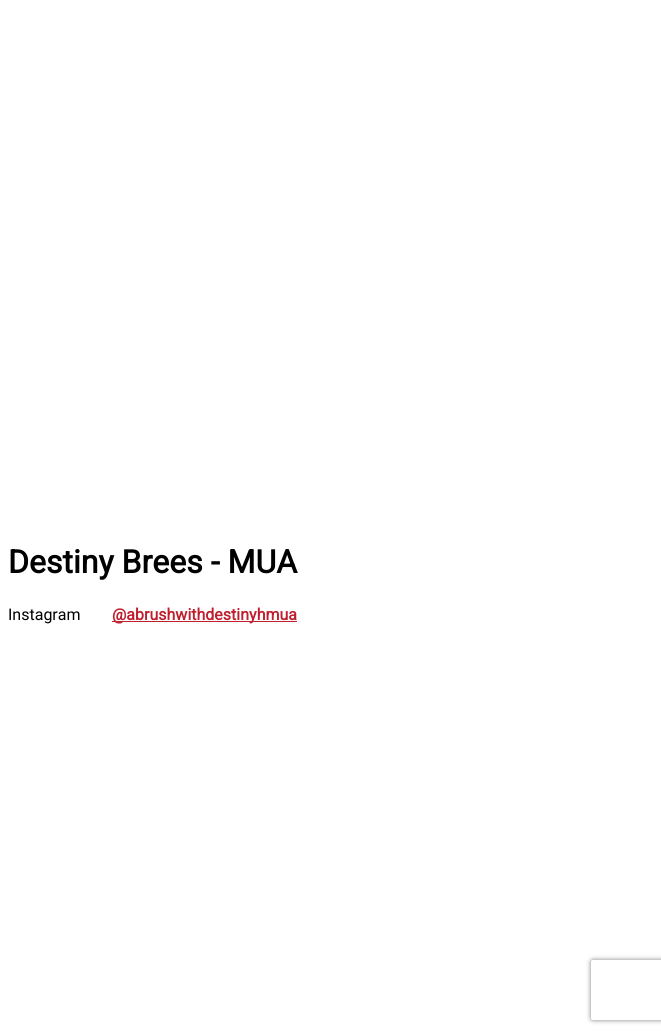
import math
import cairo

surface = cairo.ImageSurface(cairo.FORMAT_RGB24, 661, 1034)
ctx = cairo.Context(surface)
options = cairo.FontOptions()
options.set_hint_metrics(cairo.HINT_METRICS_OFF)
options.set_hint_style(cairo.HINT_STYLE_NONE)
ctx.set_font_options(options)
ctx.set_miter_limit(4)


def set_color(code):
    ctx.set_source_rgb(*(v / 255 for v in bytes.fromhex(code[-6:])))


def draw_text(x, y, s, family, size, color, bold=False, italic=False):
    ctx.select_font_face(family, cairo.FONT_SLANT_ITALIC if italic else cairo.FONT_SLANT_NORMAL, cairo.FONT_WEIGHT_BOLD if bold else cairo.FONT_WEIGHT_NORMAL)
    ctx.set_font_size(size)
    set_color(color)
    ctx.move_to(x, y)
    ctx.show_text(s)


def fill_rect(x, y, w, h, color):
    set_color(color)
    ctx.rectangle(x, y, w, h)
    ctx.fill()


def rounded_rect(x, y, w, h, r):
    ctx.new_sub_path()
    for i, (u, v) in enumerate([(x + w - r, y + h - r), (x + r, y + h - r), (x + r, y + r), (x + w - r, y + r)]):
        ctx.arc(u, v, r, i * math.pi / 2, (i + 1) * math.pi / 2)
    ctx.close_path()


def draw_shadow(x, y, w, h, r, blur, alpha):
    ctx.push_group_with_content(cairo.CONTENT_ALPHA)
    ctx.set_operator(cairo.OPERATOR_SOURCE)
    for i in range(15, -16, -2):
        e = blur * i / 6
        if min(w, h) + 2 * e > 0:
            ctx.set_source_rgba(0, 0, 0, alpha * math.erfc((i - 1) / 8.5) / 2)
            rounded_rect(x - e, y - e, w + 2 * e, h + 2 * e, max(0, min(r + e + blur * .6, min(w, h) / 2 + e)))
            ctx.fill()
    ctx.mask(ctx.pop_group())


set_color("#ffffff")
ctx.paint()
draw_text(8, 573, "Destiny Brees - MUA", "Roboto", 32, "#000000", bold=True)
draw_text(8, 620, "Instagram", "Roboto", 16, "#000000")
fill_rect(112, 621, 185, 1, "#be1e2d")
draw_text(112, 620, "@abrushwithdestinyhmua", "Roboto", 16, "#be1e2d", bold=True)
ctx.save()
ctx.set_fill_rule(cairo.FILL_RULE_EVEN_ODD)
ctx.new_path()
ctx.move_to(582, 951)
ctx.line_to(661, 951)
ctx.line_to(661, 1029)
ctx.line_to(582, 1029)
ctx.close_path()
ctx.move_to(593, 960)
ctx.line_to(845, 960)
ctx.curve_to(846, 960, 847, 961, 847, 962)
ctx.line_to(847, 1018)
ctx.curve_to(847, 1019, 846, 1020, 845, 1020)
ctx.line_to(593, 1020)
ctx.curve_to(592, 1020, 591, 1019, 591, 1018)
ctx.line_to(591, 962)
ctx.curve_to(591, 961, 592, 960, 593, 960)
ctx.close_path()
ctx.clip()
set_color("#808080")
draw_shadow(591, 960, 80, 60, 2, 2.5, 1)
ctx.restore()
surface.write_to_png("output.png")
